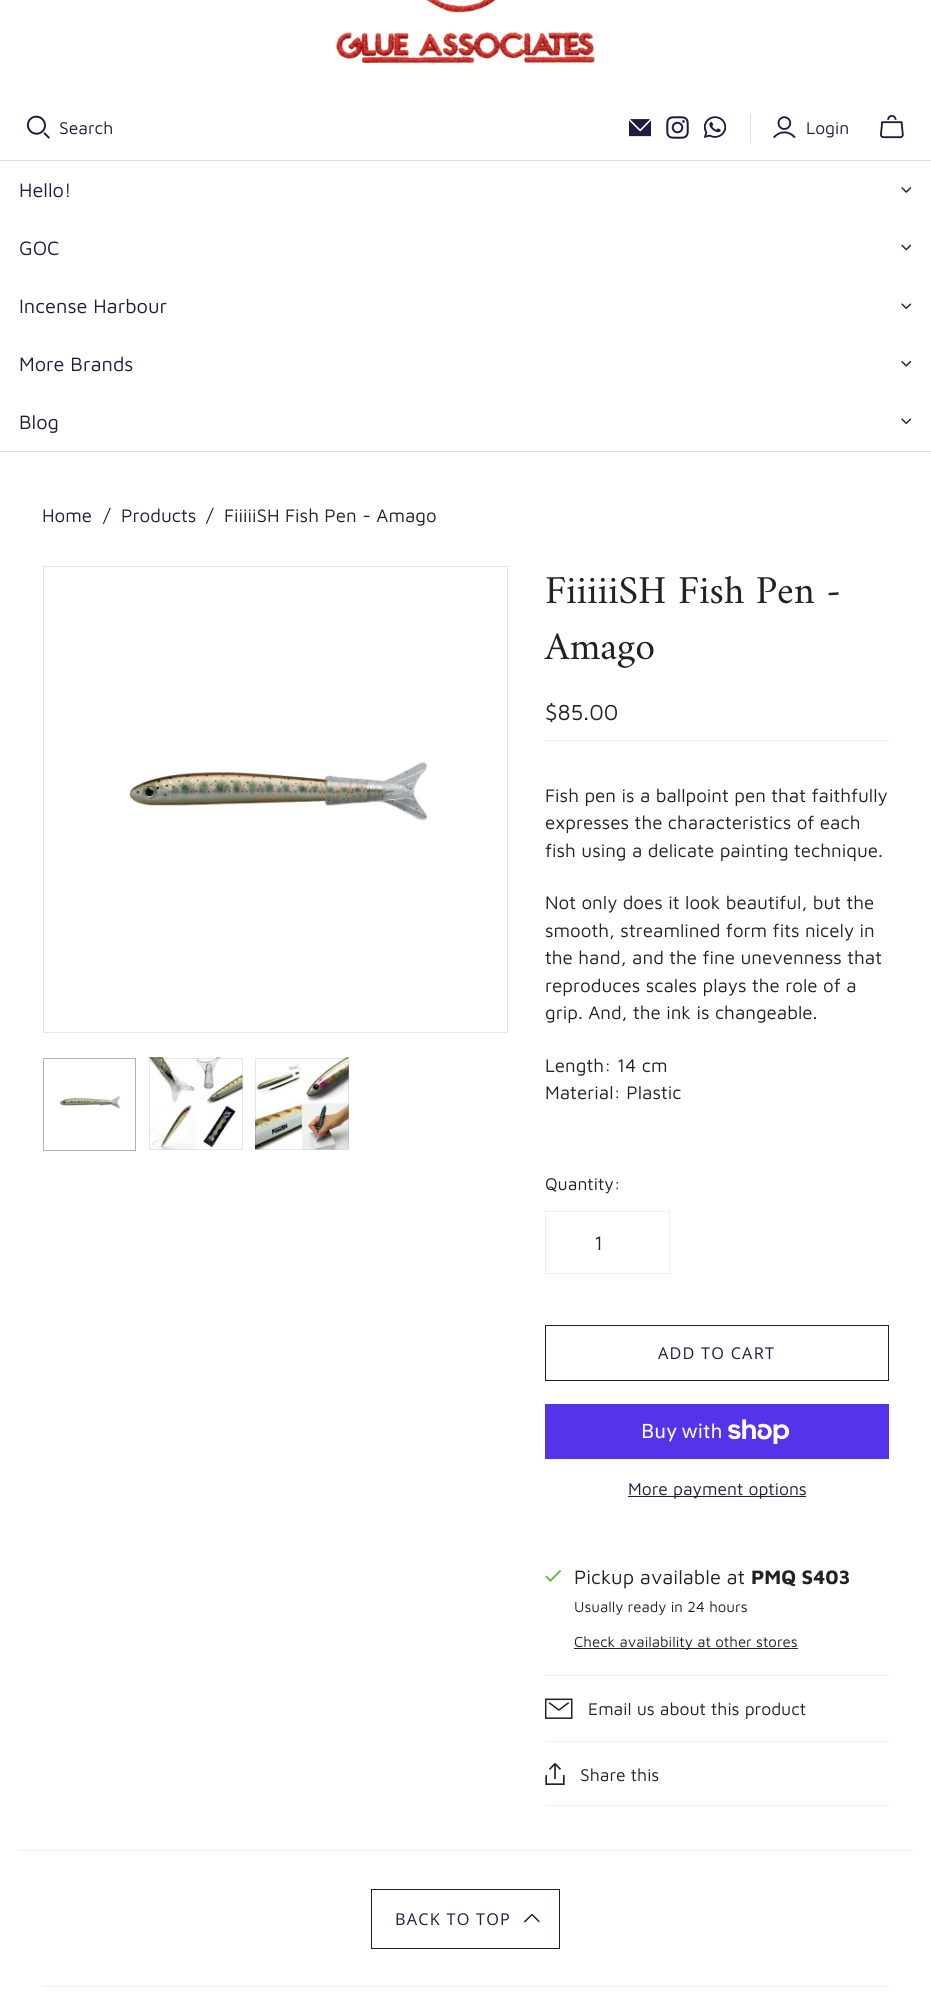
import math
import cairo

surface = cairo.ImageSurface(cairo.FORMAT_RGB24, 931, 2016)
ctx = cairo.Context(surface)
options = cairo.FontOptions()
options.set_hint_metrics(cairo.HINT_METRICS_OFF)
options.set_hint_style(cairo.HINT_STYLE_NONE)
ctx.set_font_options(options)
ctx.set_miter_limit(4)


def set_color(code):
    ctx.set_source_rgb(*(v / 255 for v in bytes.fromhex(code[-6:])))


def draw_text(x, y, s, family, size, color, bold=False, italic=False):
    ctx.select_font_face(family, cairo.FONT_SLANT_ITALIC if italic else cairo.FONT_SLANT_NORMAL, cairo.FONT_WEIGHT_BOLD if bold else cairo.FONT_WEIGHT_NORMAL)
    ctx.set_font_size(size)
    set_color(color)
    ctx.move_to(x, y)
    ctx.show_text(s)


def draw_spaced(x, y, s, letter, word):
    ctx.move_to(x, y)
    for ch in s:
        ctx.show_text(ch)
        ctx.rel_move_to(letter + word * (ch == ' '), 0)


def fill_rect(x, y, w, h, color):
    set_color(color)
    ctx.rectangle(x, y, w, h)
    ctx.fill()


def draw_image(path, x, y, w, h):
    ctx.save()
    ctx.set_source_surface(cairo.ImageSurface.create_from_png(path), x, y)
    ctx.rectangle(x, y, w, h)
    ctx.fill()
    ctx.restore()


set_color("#ffffff")
ctx.paint()
draw_image("assets/img1.png", 335, 0, 260, 64)
draw_image("assets/img2.png", 26, 115, 24, 24)
draw_text(59, 134, "Search", "Maven Pro", 17.5, "#1b1e3f")
draw_image("assets/img3.png", 629, 119, 22, 18)
draw_image("assets/img4.png", 666, 116, 23, 23)
draw_image("assets/img5.png", 704, 116, 22, 22)
fill_rect(750, 114, 1, 29, "#dddddd")
draw_image("assets/img6.png", 773, 116, 23, 23)
draw_text(806, 134, "Login", "Maven Pro", 17.5, "#1b1e3f")
draw_image("assets/img7.png", 880, 115, 24, 24)
fill_rect(0, 160, 931, 1, "#dddddd")
fill_rect(0, 451, 931, 1, "#dddddd")
draw_text(19, 197, "Hello!", "Maven Pro", 20, "#1b1e3f")
draw_image("assets/img8.png", 901, 187, 11, 6)
draw_text(19, 255, "GOC", "Maven Pro", 20, "#1b1e3f")
draw_image("assets/img9.png", 901, 244, 11, 7)
draw_text(19, 313, "Incense Harbour", "Maven Pro", 20, "#1b1e3f")
draw_image("assets/img10.png", 901, 303, 11, 6)
draw_text(19, 371, "More Brands", "Maven Pro", 20, "#1b1e3f")
draw_image("assets/img11.png", 901, 361, 11, 6)
draw_text(19, 429, "Blog", "Maven Pro", 20, "#1b1e3f")
draw_image("assets/img10.png", 901, 418, 11, 6)
draw_text(42, 522, "Home", "Maven Pro", 18.75, "#1b1e3f")
draw_text(103, 522, "/", "Maven Pro", 18.75, "#222222")
draw_text(121, 522, "Products", "Maven Pro", 18.75, "#1b1e3f")
draw_text(206, 522, "/", "Maven Pro", 18.75, "#222222")
draw_text(224, 522, "FiiiiiSH Fish Pen - Amago", "Maven Pro", 18.75, "#222222")
draw_image("assets/img12.png", 129, 761, 299, 60)
ctx.rectangle(43.5, 566.5, 464, 466)
set_color("#e6e6e6")
ctx.set_line_width(1)
ctx.stroke()
draw_image("assets/img13.png", 59, 1096, 62, 13)
ctx.rectangle(43.5, 1058.5, 92, 92)
set_color("#b3b3b3")
ctx.stroke()
draw_image("assets/img14.png", 148, 1057, 95, 93)
ctx.rectangle(149.5, 1058.5, 93, 91)
ctx.set_source_rgba(0, 0, 0, 0.1)
ctx.stroke()
draw_image("assets/img15.png", 255, 1057, 94, 93)
ctx.rectangle(255.5, 1058.5, 93, 91)
ctx.stroke()
draw_text(545, 603, "FiiiiiSH Fish Pen -", "Amiri", 40, "#222222")
draw_text(545, 659, "Amago", "Amiri", 40, "#222222")
fill_rect(545, 740, 344, 1, "#eeeeee")
draw_text(545, 720, "$85.00", "Maven Pro", 22.5, "#222222")
draw_text(545, 802, "Fish pen is a ballpoint pen that faithfully", "Maven Pro", 18.75, "#222222")
draw_text(545, 829, "expresses the characteristics of each", "Maven Pro", 18.75, "#222222")
draw_text(545, 857, "fish using a delicate painting technique.", "Maven Pro", 18.75, "#222222")
draw_text(545, 909, "Not only does it look beautiful, but the", "Maven Pro", 18.75, "#222222")
draw_text(545, 937, "smooth, streamlined form fits nicely in", "Maven Pro", 18.75, "#222222")
draw_text(545, 964, "the hand, and the fine unevenness that", "Maven Pro", 18.75, "#222222")
draw_text(545, 992, "reproduces scales plays the role of a", "Maven Pro", 18.75, "#222222")
draw_text(545, 1019, "grip. And, the ink is changeable.", "Maven Pro", 18.75, "#222222")
draw_text(545, 1072, "Length: 14 cm", "Maven Pro", 18.75, "#222222")
draw_text(545, 1099, "Material: Plastic", "Maven Pro", 18.75, "#222222")
fill_rect(545, 1675, 344, 1, "#eeeeee")
draw_text(545, 1190, "Quantity:", "Maven Pro", 17.5, "#222222")
ctx.rectangle(545.5, 1211.5, 124, 62)
set_color("#eeeeee")
ctx.stroke()
draw_text(594, 1250, "1", "Maven Pro", 20, "#222222")
ctx.rectangle(545.5, 1325.5, 343, 55)
set_color("#1b1e3f")
ctx.stroke()
ctx.select_font_face("Open Sans")
ctx.set_font_size(16.25)
draw_spaced(658, 1359, "ADD TO CART", 1.25, 0)
fill_rect(545, 1404, 344, 55, "#5433eb")
draw_text(641, 1438, "Buy with", "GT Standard", 20, "#ffffff")
draw_image("assets/img16.png", 728, 1419, 62, 25)
fill_rect(628, 1496, 178, 1, "#1b1e3f")
draw_text(628, 1495, "More payment options", "Maven Pro", 17.5, "#1b1e3f")
draw_image("assets/img17.png", 545, 1570, 16, 12)
draw_text(574, 1584, "Pickup available at", "Maven Pro", 20, "#222222")
draw_text(751, 1584, "PMQ S403", "Maven Pro", 20, "#222222", bold=True)
draw_text(574, 1612, "Usually ready in 24 hours", "Maven Pro", 15, "#222222")
fill_rect(574, 1648, 224, 1, "#222222")
draw_text(574, 1647, "Check availability at other stores", "Maven Pro", 15, "#222222")
fill_rect(545, 1741, 344, 1, "#eeeeee")
draw_image("assets/img18.png", 545, 1698, 28, 21)
draw_text(588, 1715, "Email us about this product", "Maven Pro", 17.5, "#222222")
fill_rect(545, 1805, 344, 1, "#eeeeee")
draw_image("assets/img19.png", 545, 1763, 20, 22)
draw_text(580, 1781, "Share this", "Maven Pro", 17.5, "#222222")
fill_rect(19, 1850, 894, 1, "#eeeeee")
ctx.rectangle(371.5, 1889.5, 188, 59)
set_color("#1b1e3f")
ctx.stroke()
ctx.select_font_face("Open Sans")
ctx.set_font_size(16.25)
draw_spaced(395, 1925, "BACK TO TOP", 1.25, 0)
draw_image("assets/img20.png", 524, 1914, 16, 9)
fill_rect(43, 1986, 846, 1, "#eeeeee")
surface.write_to_png("output.png")
